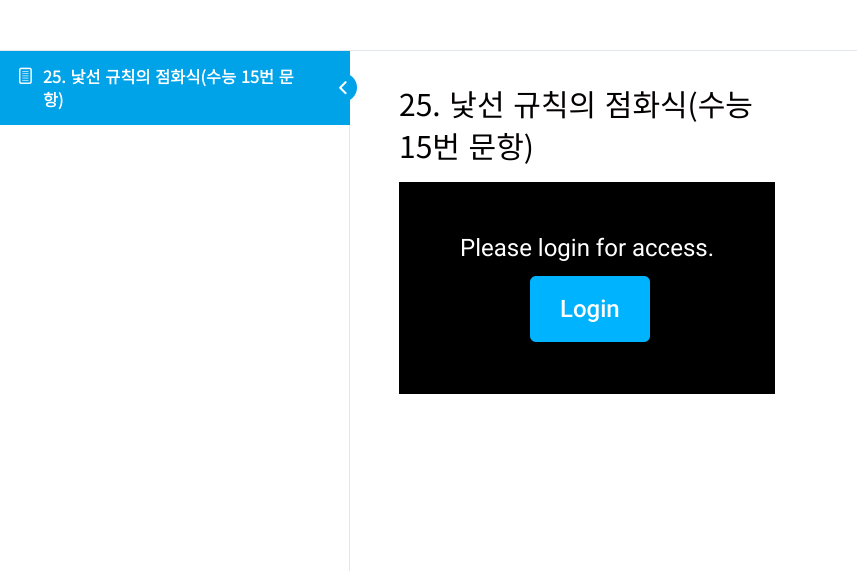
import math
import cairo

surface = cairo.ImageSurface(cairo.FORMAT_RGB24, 857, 571)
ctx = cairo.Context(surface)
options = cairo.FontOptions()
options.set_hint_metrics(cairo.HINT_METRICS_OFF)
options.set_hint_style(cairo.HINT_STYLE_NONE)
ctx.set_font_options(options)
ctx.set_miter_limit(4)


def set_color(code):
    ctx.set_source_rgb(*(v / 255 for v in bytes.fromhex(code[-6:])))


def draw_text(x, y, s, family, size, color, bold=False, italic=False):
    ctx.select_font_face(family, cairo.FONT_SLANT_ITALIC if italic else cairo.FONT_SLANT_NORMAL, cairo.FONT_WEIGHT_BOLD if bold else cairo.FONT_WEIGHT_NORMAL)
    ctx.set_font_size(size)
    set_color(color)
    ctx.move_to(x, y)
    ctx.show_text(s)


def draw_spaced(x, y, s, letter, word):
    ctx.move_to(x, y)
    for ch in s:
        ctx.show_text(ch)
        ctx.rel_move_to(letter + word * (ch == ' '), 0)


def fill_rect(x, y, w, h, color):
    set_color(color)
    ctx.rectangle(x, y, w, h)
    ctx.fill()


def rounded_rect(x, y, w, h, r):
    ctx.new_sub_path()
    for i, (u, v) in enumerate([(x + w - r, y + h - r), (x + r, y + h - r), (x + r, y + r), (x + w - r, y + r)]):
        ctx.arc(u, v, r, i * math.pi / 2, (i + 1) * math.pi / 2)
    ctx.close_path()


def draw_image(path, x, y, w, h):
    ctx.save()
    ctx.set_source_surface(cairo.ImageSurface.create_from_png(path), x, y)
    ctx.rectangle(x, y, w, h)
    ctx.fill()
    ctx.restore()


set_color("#ffffff")
ctx.paint()
fill_rect(349, 125, 1, 446, "#e2e7ed")
fill_rect(0, 51, 350, 74, "#00a2e8")
draw_image("assets/img1.png", 19, 67, 13, 17)
ctx.select_font_face("Noto Sans KR", cairo.FONT_SLANT_NORMAL, cairo.FONT_WEIGHT_BOLD)
ctx.set_font_size(16.4)
set_color("#ffffff")
draw_spaced(43, 83, "25. 낯선 규칙의 점화식(수능 15번 문", 0, 1)
draw_text(43, 106, "항)", "Noto Sans KR", 16.4, "#ffffff", bold=True)
set_color("#00a2e8")
ctx.new_path()
ctx.arc(342.5, 87.5, 14.5, 0, 2 * math.pi)
ctx.fill()
draw_image("assets/img2.png", 339, 81, 8, 14)
fill_rect(0, 50, 857, 1, "#e2e7ed")
ctx.select_font_face("Noto Sans KR Thin")
ctx.set_font_size(30)
set_color("#030000")
draw_spaced(399, 116, "25. 낯선 규칙의 점화식(수능", 0, 2)
draw_spaced(399, 158, "15번 문항)", 0, 2)
fill_rect(399, 182, 376, 212, "#000000")
draw_text(460, 256, "Please login for access.", "Roboto", 24, "#ffffff")
set_color("#00b3ff")
rounded_rect(531.5, 277.5, 117, 63, 4.5)
ctx.fill_preserve()
ctx.set_line_width(3)
ctx.stroke()
draw_text(560, 317, "Login", "Roboto Medium", 24, "#ffffff")
surface.write_to_png("output.png")
